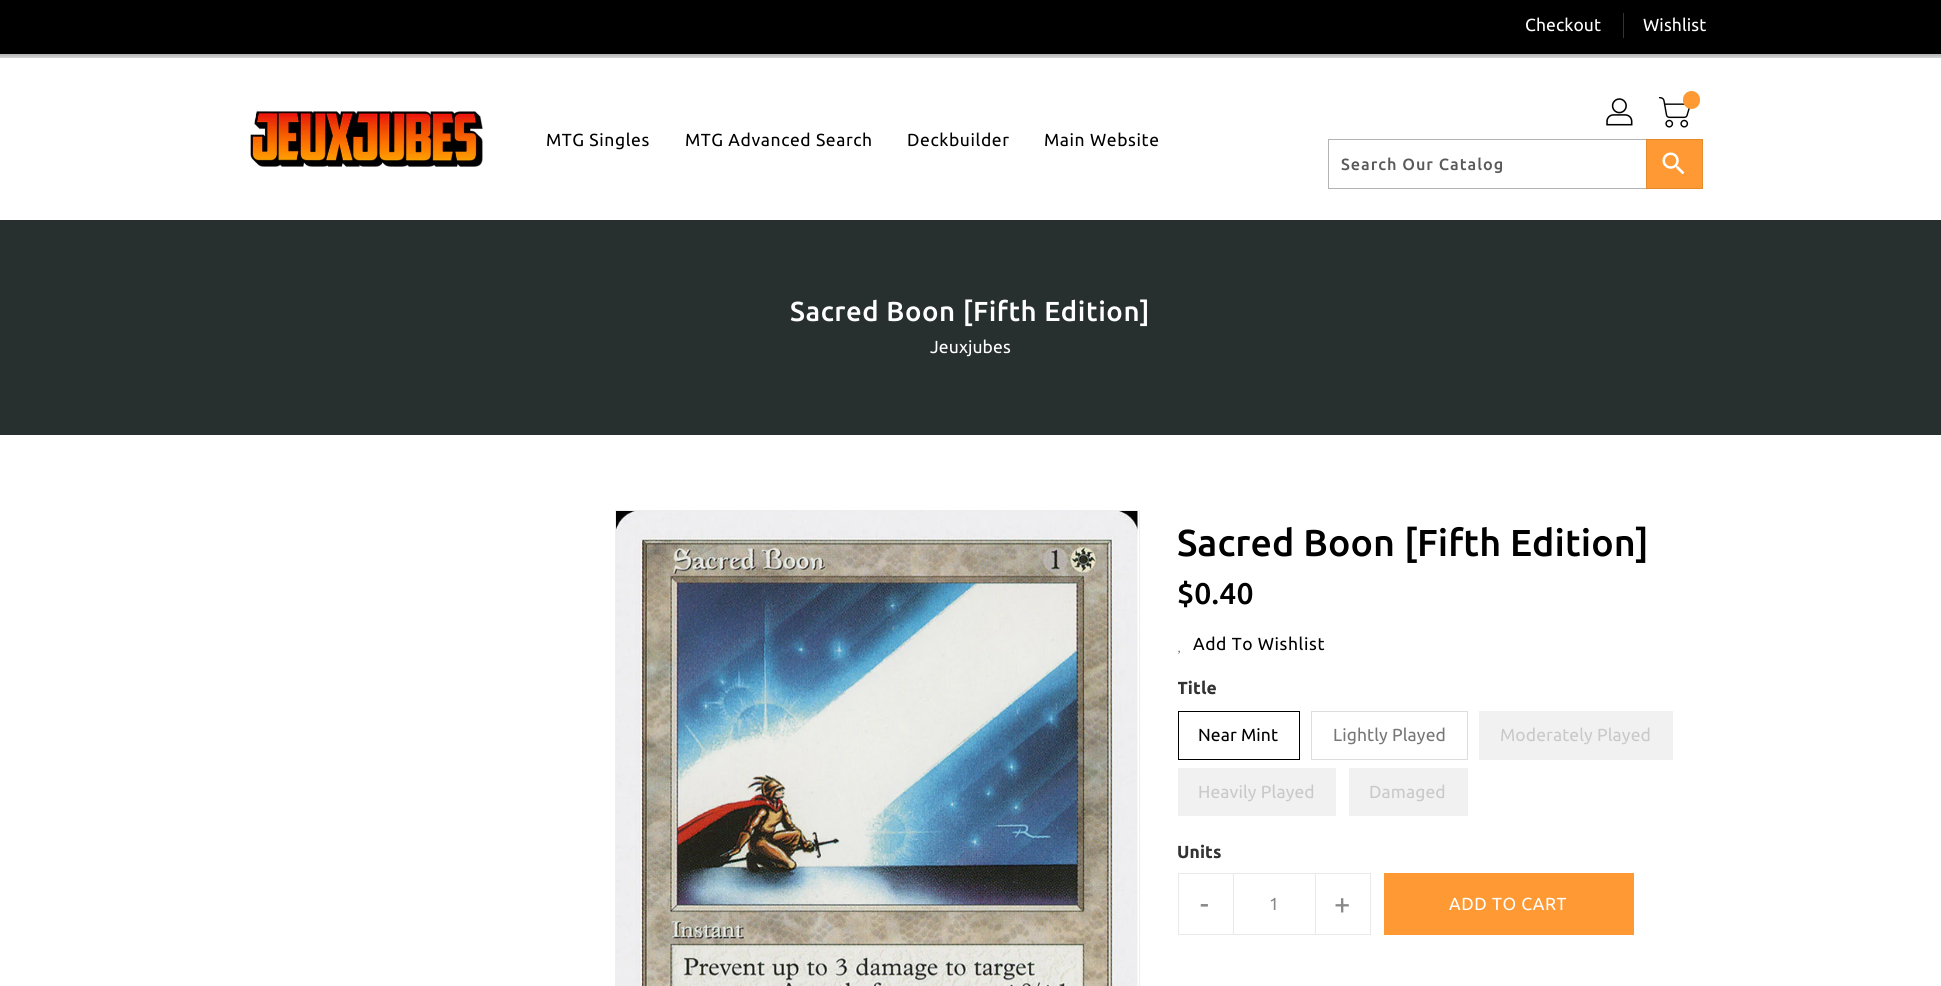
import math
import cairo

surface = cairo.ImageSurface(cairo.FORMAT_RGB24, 1941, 986)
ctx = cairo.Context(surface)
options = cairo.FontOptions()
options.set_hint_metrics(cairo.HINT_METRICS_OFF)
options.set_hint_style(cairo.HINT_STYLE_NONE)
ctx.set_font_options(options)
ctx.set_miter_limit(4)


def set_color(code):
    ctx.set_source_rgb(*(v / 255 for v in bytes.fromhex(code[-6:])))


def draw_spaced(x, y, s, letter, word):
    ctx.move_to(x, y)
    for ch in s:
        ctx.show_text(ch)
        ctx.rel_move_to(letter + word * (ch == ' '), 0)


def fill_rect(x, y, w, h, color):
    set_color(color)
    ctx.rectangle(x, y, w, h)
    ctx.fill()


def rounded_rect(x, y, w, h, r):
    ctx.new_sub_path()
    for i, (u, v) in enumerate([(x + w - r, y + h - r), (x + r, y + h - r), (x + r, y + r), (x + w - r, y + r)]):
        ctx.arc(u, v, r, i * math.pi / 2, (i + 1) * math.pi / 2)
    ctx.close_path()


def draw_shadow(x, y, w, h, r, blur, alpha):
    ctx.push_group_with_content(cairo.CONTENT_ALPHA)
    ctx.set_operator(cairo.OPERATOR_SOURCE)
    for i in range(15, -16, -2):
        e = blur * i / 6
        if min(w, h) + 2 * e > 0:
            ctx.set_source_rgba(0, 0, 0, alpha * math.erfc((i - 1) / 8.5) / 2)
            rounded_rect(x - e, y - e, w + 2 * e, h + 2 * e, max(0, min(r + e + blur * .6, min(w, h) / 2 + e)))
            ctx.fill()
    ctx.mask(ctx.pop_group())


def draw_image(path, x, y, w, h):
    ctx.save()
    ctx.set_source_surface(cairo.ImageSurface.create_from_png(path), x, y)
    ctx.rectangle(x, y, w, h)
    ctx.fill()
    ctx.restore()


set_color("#ffffff")
ctx.paint()
set_color("#000000")
draw_shadow(-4, -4, 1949, 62, 0, 2.5, 0.3)
fill_rect(0, 0, 1941, 54, "#000000")
ctx.select_font_face("Ubuntu")
ctx.set_font_size(17.5)
set_color("#ffffff")
draw_spaced(1525, 31, "Checkout", 0.1, 0)
fill_rect(1623, 13, 1, 25, "#333333")
set_color("#ffffff")
draw_spaced(1643, 31, "Wishlist", 0.1, 0)
fill_rect(0, 58, 1941, 5, "#ffffff")
draw_image("assets/img1.png", 250, 111, 233, 56)
set_color("#000000")
draw_spaced(546, 146, "MTG Singles", 0.6, 0)
draw_spaced(685, 146, "MTG Advanced Search", 0.6, 0)
draw_spaced(907, 146, "Deckbuilder", 0.6, 0)
draw_spaced(1044, 146, "Main Website", 0.6, 0)
draw_image("assets/img2.png", 1606, 98, 27, 28)
draw_image("assets/img3.png", 1659, 97, 31, 31)
set_color("#ff9933")
rounded_rect(1683, 91, 17, 18, 8.5)
ctx.fill()
ctx.rectangle(1328.5, 139.5, 374, 49)
set_color("#b3b3b3")
ctx.set_line_width(1)
ctx.stroke()
ctx.select_font_face("Ubuntu Medium")
ctx.set_font_size(16.25)
set_color("#595959")
draw_spaced(1341, 170, "Search Our Catalog", 1, 0)
set_color("#ff9933")
ctx.rectangle(1646.5, 139.5, 56, 49)
ctx.fill_preserve()
set_color("#e68a2e")
ctx.stroke()
draw_image("assets/img4.png", 1662, 152, 23, 23)
fill_rect(0, 220, 1941, 215, "#27302f")
ctx.set_font_size(27.5)
set_color("#ffffff")
draw_spaced(790, 321, "Sacred Boon [Fifth Edition]", 0.6, 0)
ctx.select_font_face("Ubuntu")
ctx.set_font_size(17.5)
draw_spaced(930, 353, "Jeuxjubes", 0.1, 0)
ctx.rectangle(615.5, 510.5, 524, 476)
set_color("#eeeeee")
ctx.stroke()
draw_image("assets/img5.png", 616, 511, 522, 475)
ctx.select_font_face("Ubuntu Medium")
ctx.set_font_size(37.5)
set_color("#000000")
draw_spaced(1177, 556, "Sacred Boon [Fifth Edition]", 0.1, 0)
ctx.set_font_size(30)
draw_spaced(1177, 604, "$0.40", 0.1, 0)
ctx.select_font_face("Ubuntu")
ctx.set_font_size(17.5)
draw_spaced(1193, 650, "Add To Wishlist", 0.6, 0)
draw_image("assets/img6.png", 1177, 650, 3, 4)
ctx.save()
ctx.rectangle(1178, 675, 518, 149)
ctx.clip()
ctx.select_font_face("Ubuntu", cairo.FONT_SLANT_NORMAL, cairo.FONT_WEIGHT_BOLD)
set_color("#333333")
draw_spaced(1177, 694, "Title", 0.1, 0)
ctx.restore()
ctx.rectangle(1178.5, 711.5, 121, 48)
ctx.stroke()
draw_spaced(1198, 741, "Near Mint", 0.1, 0)
ctx.rectangle(1311.5, 711.5, 156, 48)
set_color("#dddddd")
ctx.stroke()
set_color("#777777")
draw_spaced(1333, 741, "Lightly Played", 0.1, 0)
fill_rect(1479, 711, 194, 49, "#f1f1f1")
set_color("#c9c9c9")
draw_spaced(1500, 741, "Moderately Played", 0.1, 0)
fill_rect(1178, 768, 158, 48, "#f1f1f1")
set_color("#c9c9c9")
draw_spaced(1198, 798, "Heavily Played", 0.1, 0)
fill_rect(1349, 768, 119, 48, "#f1f1f1")
set_color("#c9c9c9")
draw_spaced(1369, 798, "Damaged", 0.1, 0)
ctx.select_font_face("Ubuntu", cairo.FONT_SLANT_NORMAL, cairo.FONT_WEIGHT_BOLD)
set_color("#333333")
draw_spaced(1177, 858, "Units", 0.1, 0)
ctx.rectangle(1178.5, 873.5, 55, 61)
set_color("#e9e9e9")
ctx.stroke()
ctx.select_font_face("Ubuntu")
ctx.set_font_size(29)
set_color("#888888")
draw_spaced(1200, 914, "-", 0.6, 0)
fill_rect(1234, 873, 81, 1, "#e9e9e9")
fill_rect(1234, 934, 81, 1, "#e9e9e9")
ctx.set_font_size(17.5)
set_color("#888888")
draw_spaced(1269, 910, "1", 0.1, 0)
ctx.rectangle(1315.5, 873.5, 55, 61)
set_color("#e9e9e9")
ctx.stroke()
ctx.set_font_size(29)
set_color("#888888")
draw_spaced(1334, 914, "+", 0.6, 0)
fill_rect(1384, 873, 250, 62, "#ff9933")
ctx.set_font_size(17.5)
set_color("#ffffff")
draw_spaced(1449, 910, "ADD TO CART", 0.6, 0)
surface.write_to_png("output.png")
